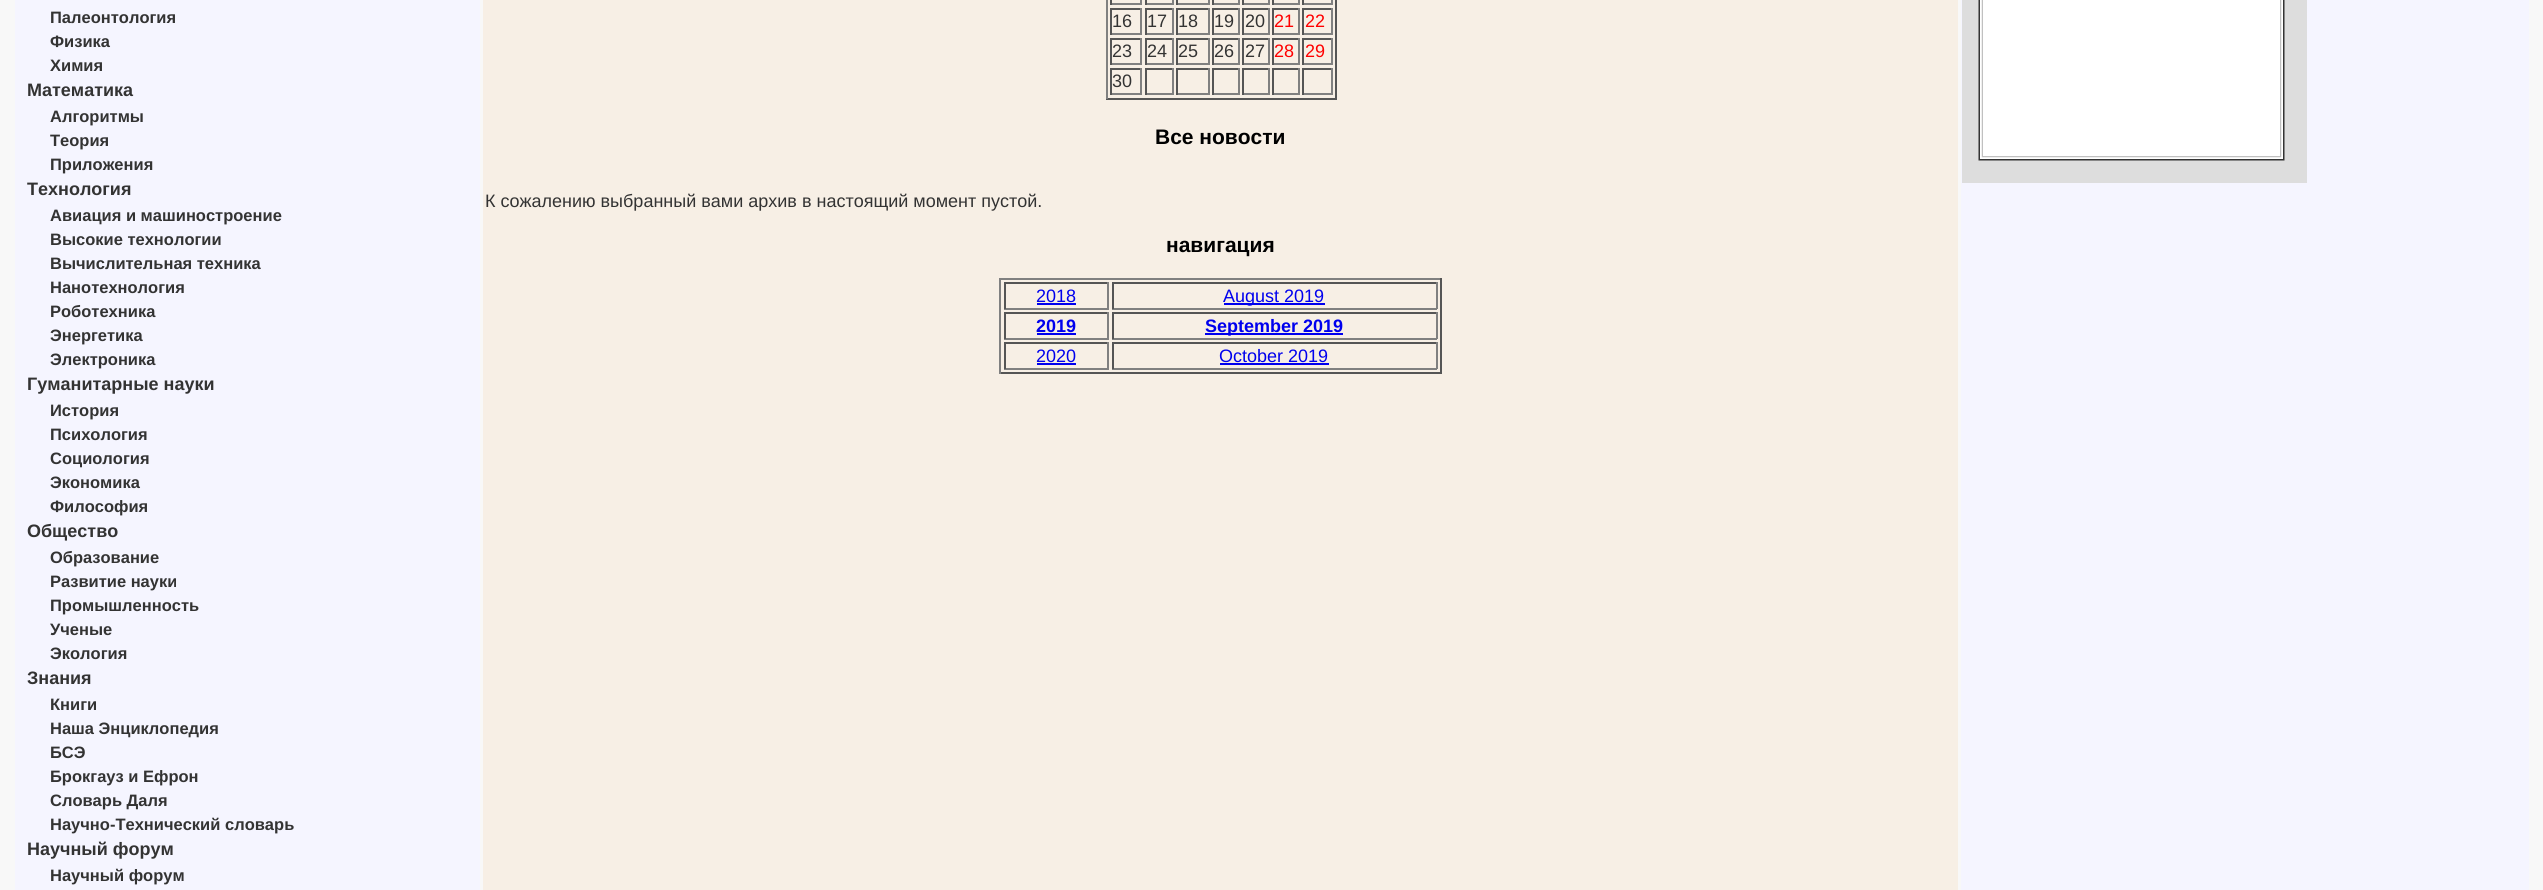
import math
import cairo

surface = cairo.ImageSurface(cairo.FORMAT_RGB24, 2543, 890)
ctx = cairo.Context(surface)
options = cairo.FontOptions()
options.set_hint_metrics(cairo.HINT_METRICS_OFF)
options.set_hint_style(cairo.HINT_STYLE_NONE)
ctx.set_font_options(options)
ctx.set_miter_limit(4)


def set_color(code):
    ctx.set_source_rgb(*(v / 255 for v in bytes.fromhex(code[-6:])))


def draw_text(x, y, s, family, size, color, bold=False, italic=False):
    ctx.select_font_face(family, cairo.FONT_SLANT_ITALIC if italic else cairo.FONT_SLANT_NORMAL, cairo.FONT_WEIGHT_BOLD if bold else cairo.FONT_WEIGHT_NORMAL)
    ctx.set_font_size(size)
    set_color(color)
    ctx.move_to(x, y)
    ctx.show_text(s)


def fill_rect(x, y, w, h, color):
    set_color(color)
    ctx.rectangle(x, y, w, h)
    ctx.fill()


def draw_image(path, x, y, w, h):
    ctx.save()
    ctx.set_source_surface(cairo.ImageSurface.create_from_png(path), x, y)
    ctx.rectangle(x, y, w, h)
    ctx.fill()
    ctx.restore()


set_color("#f8f8f8")
ctx.paint()
fill_rect(15, 0, 465, 890, "#f5f5ff")
draw_text(50, 23, "Палеонтология", "Liberation Sans", 16.5, "#333333", bold=True)
draw_text(50, 47, "Физика", "Liberation Sans", 16.5, "#333333", bold=True)
draw_text(50, 71, "Химия", "Liberation Sans", 16.5, "#333333", bold=True)
draw_text(27, 96, "Математика", "Liberation Sans", 18, "#333333", bold=True)
draw_text(50, 122, "Алгоритмы", "Liberation Sans", 16.5, "#333333", bold=True)
draw_text(50, 146, "Теория", "Liberation Sans", 16.5, "#333333", bold=True)
draw_text(50, 170, "Приложения", "Liberation Sans", 16.5, "#333333", bold=True)
draw_text(27, 195, "Технология", "Liberation Sans", 18, "#333333", bold=True)
draw_text(50, 221, "Авиация и машиностроение", "Liberation Sans", 16.5, "#333333", bold=True)
draw_text(50, 245, "Высокие технологии", "Liberation Sans", 16.5, "#333333", bold=True)
draw_text(50, 269, "Вычислительная техника", "Liberation Sans", 16.5, "#333333", bold=True)
draw_text(50, 293, "Нанотехнология", "Liberation Sans", 16.5, "#333333", bold=True)
draw_text(50, 317, "Роботехника", "Liberation Sans", 16.5, "#333333", bold=True)
draw_text(50, 341, "Энергетика", "Liberation Sans", 16.5, "#333333", bold=True)
draw_text(50, 365, "Электроника", "Liberation Sans", 16.5, "#333333", bold=True)
draw_text(27, 390, "Гуманитарные науки", "Liberation Sans", 18, "#333333", bold=True)
draw_text(50, 416, "История", "Liberation Sans", 16.5, "#333333", bold=True)
draw_text(50, 440, "Психология", "Liberation Sans", 16.5, "#333333", bold=True)
draw_text(50, 464, "Социология", "Liberation Sans", 16.5, "#333333", bold=True)
draw_text(50, 488, "Экономика", "Liberation Sans", 16.5, "#333333", bold=True)
draw_text(50, 512, "Философия", "Liberation Sans", 16.5, "#333333", bold=True)
draw_text(27, 537, "Общество", "Liberation Sans", 18, "#333333", bold=True)
draw_text(50, 563, "Образование", "Liberation Sans", 16.5, "#333333", bold=True)
draw_text(50, 587, "Развитие науки", "Liberation Sans", 16.5, "#333333", bold=True)
draw_text(50, 611, "Промышленность", "Liberation Sans", 16.5, "#333333", bold=True)
draw_text(50, 635, "Ученые", "Liberation Sans", 16.5, "#333333", bold=True)
draw_text(50, 659, "Экология", "Liberation Sans", 16.5, "#333333", bold=True)
draw_text(27, 684, "Знания", "Liberation Sans", 18, "#333333", bold=True)
draw_text(50, 710, "Книги", "Liberation Sans", 16.5, "#333333", bold=True)
draw_text(50, 734, "Наша Энциклопедия", "Liberation Sans", 16.5, "#333333", bold=True)
draw_text(50, 758, "БСЭ", "Liberation Sans", 16.5, "#333333", bold=True)
draw_text(50, 782, "Брокгауз и Ефрон", "Liberation Sans", 16.5, "#333333", bold=True)
draw_text(50, 806, "Словарь Даля", "Liberation Sans", 16.5, "#333333", bold=True)
draw_text(50, 830, "Научно-Технический словарь", "Liberation Sans", 16.5, "#333333", bold=True)
draw_text(27, 855, "Научный форум", "Liberation Sans", 18, "#333333", bold=True)
draw_text(50, 881, "Научный форум", "Liberation Sans", 16.5, "#333333", bold=True)
fill_rect(483, 0, 1475, 890, "#f7efe5")
fill_rect(1335, 0, 2, 99, "#555555")
fill_rect(1106, 98, 231, 2, "#555555")
fill_rect(1106, 0, 2, 99, "#808080")
fill_rect(1140, 0, 2, 5, "#808080")
fill_rect(1110, 3, 32, 2, "#808080")
fill_rect(1110, 0, 2, 5, "#555555")
fill_rect(1172, 0, 2, 5, "#808080")
fill_rect(1145, 3, 28, 2, "#808080")
fill_rect(1145, 0, 2, 5, "#555555")
fill_rect(1208, 0, 2, 5, "#808080")
fill_rect(1176, 3, 33, 2, "#808080")
fill_rect(1176, 0, 2, 5, "#555555")
fill_rect(1238, 0, 2, 5, "#808080")
fill_rect(1212, 3, 27, 2, "#808080")
fill_rect(1212, 0, 2, 5, "#555555")
fill_rect(1268, 0, 2, 5, "#808080")
fill_rect(1242, 3, 27, 2, "#808080")
fill_rect(1242, 0, 2, 5, "#555555")
fill_rect(1298, 0, 2, 5, "#808080")
fill_rect(1272, 3, 27, 2, "#808080")
fill_rect(1272, 0, 2, 5, "#555555")
fill_rect(1331, 0, 2, 5, "#808080")
fill_rect(1302, 3, 30, 2, "#808080")
fill_rect(1302, 0, 2, 5, "#555555")
fill_rect(1110, 8, 32, 2, "#555555")
fill_rect(1140, 8, 2, 27, "#808080")
fill_rect(1110, 33, 32, 2, "#808080")
fill_rect(1110, 8, 2, 27, "#555555")
draw_text(1112, 27, "16", "Liberation Sans", 18, "#333333")
fill_rect(1145, 8, 28, 2, "#555555")
fill_rect(1172, 8, 2, 27, "#808080")
fill_rect(1145, 33, 28, 2, "#808080")
fill_rect(1145, 8, 2, 27, "#555555")
draw_text(1147, 27, "17", "Liberation Sans", 18, "#333333")
fill_rect(1176, 8, 33, 2, "#555555")
fill_rect(1208, 8, 2, 27, "#808080")
fill_rect(1176, 33, 33, 2, "#808080")
fill_rect(1176, 8, 2, 27, "#555555")
draw_text(1178, 27, "18", "Liberation Sans", 18, "#333333")
fill_rect(1212, 8, 27, 2, "#555555")
fill_rect(1238, 8, 2, 27, "#808080")
fill_rect(1212, 33, 27, 2, "#808080")
fill_rect(1212, 8, 2, 27, "#555555")
draw_text(1214, 27, "19", "Liberation Sans", 18, "#333333")
fill_rect(1242, 8, 27, 2, "#555555")
fill_rect(1268, 8, 2, 27, "#808080")
fill_rect(1242, 33, 27, 2, "#808080")
fill_rect(1242, 8, 2, 27, "#555555")
draw_text(1245, 27, "20", "Liberation Sans", 18, "#333333")
fill_rect(1272, 8, 27, 2, "#555555")
fill_rect(1298, 8, 2, 27, "#808080")
fill_rect(1272, 33, 27, 2, "#808080")
fill_rect(1272, 8, 2, 27, "#555555")
draw_text(1274, 27, "21", "Liberation Sans", 18, "#ff0000")
fill_rect(1302, 8, 30, 2, "#555555")
fill_rect(1331, 8, 2, 27, "#808080")
fill_rect(1302, 33, 30, 2, "#808080")
fill_rect(1302, 8, 2, 27, "#555555")
draw_text(1305, 27, "22", "Liberation Sans", 18, "#ff0000")
fill_rect(1110, 38, 32, 2, "#555555")
fill_rect(1140, 38, 2, 27, "#808080")
fill_rect(1110, 63, 32, 2, "#808080")
fill_rect(1110, 38, 2, 27, "#555555")
draw_text(1112, 57, "23", "Liberation Sans", 18, "#333333")
fill_rect(1145, 38, 28, 2, "#555555")
fill_rect(1172, 38, 2, 27, "#808080")
fill_rect(1145, 63, 28, 2, "#808080")
fill_rect(1145, 38, 2, 27, "#555555")
draw_text(1147, 57, "24", "Liberation Sans", 18, "#333333")
fill_rect(1176, 38, 33, 2, "#555555")
fill_rect(1208, 38, 2, 27, "#808080")
fill_rect(1176, 63, 33, 2, "#808080")
fill_rect(1176, 38, 2, 27, "#555555")
draw_text(1178, 57, "25", "Liberation Sans", 18, "#333333")
fill_rect(1212, 38, 27, 2, "#555555")
fill_rect(1238, 38, 2, 27, "#808080")
fill_rect(1212, 63, 27, 2, "#808080")
fill_rect(1212, 38, 2, 27, "#555555")
draw_text(1214, 57, "26", "Liberation Sans", 18, "#333333")
fill_rect(1242, 38, 27, 2, "#555555")
fill_rect(1268, 38, 2, 27, "#808080")
fill_rect(1242, 63, 27, 2, "#808080")
fill_rect(1242, 38, 2, 27, "#555555")
draw_text(1245, 57, "27", "Liberation Sans", 18, "#333333")
fill_rect(1272, 38, 27, 2, "#555555")
fill_rect(1298, 38, 2, 27, "#808080")
fill_rect(1272, 63, 27, 2, "#808080")
fill_rect(1272, 38, 2, 27, "#555555")
draw_text(1274, 57, "28", "Liberation Sans", 18, "#ff0000")
fill_rect(1302, 38, 30, 2, "#555555")
fill_rect(1331, 38, 2, 27, "#808080")
fill_rect(1302, 63, 30, 2, "#808080")
fill_rect(1302, 38, 2, 27, "#555555")
draw_text(1305, 57, "29", "Liberation Sans", 18, "#ff0000")
fill_rect(1110, 68, 32, 2, "#555555")
fill_rect(1140, 68, 2, 27, "#808080")
fill_rect(1110, 93, 32, 2, "#808080")
fill_rect(1110, 68, 2, 27, "#555555")
draw_text(1112, 87, "30", "Liberation Sans", 18, "#333333")
fill_rect(1145, 68, 28, 2, "#555555")
fill_rect(1172, 68, 2, 27, "#808080")
fill_rect(1145, 93, 28, 2, "#808080")
fill_rect(1145, 68, 2, 27, "#555555")
fill_rect(1176, 68, 33, 2, "#555555")
fill_rect(1208, 68, 2, 27, "#808080")
fill_rect(1176, 93, 33, 2, "#808080")
fill_rect(1176, 68, 2, 27, "#555555")
fill_rect(1212, 68, 27, 2, "#555555")
fill_rect(1238, 68, 2, 27, "#808080")
fill_rect(1212, 93, 27, 2, "#808080")
fill_rect(1212, 68, 2, 27, "#555555")
fill_rect(1242, 68, 27, 2, "#555555")
fill_rect(1268, 68, 2, 27, "#808080")
fill_rect(1242, 93, 27, 2, "#808080")
fill_rect(1242, 68, 2, 27, "#555555")
fill_rect(1272, 68, 27, 2, "#555555")
fill_rect(1298, 68, 2, 27, "#808080")
fill_rect(1272, 93, 27, 2, "#808080")
fill_rect(1272, 68, 2, 27, "#555555")
fill_rect(1302, 68, 30, 2, "#555555")
fill_rect(1331, 68, 2, 27, "#808080")
fill_rect(1302, 93, 30, 2, "#808080")
fill_rect(1302, 68, 2, 27, "#555555")
draw_text(1155, 144, "Все новости", "Liberation Sans", 21, "#000000", bold=True)
draw_text(485, 207, "К сожалению выбранный вами архив в настоящий момент пустой.", "Liberation Sans", 18, "#333333")
draw_text(1166, 252, "навигация", "Liberation Sans", 21, "#000000", bold=True)
fill_rect(999, 278, 443, 2, "#808080")
fill_rect(1440, 278, 2, 96, "#555555")
fill_rect(999, 372, 443, 2, "#555555")
fill_rect(999, 278, 2, 96, "#808080")
fill_rect(1004, 282, 105, 2, "#555555")
fill_rect(1107, 282, 2, 27, "#808080")
fill_rect(1004, 308, 105, 2, "#808080")
fill_rect(1004, 282, 2, 27, "#555555")
draw_text(1036, 302, "2018", "Liberation Sans", 18, "#0000ee")
fill_rect(1037, 303, 39, 2, "#0000ee")
fill_rect(1112, 282, 325, 2, "#555555")
fill_rect(1436, 282, 2, 27, "#808080")
fill_rect(1112, 308, 325, 2, "#808080")
fill_rect(1112, 282, 2, 27, "#555555")
fill_rect(1224, 303, 101, 2, "#0000ee")
draw_text(1223, 302, "August 2019", "Liberation Sans", 18, "#0000ee")
fill_rect(1004, 312, 105, 2, "#555555")
fill_rect(1107, 312, 2, 27, "#808080")
fill_rect(1004, 338, 105, 2, "#808080")
fill_rect(1004, 312, 2, 27, "#555555")
draw_text(1036, 332, "2019", "Liberation Sans", 18, "#0000ee", bold=True)
fill_rect(1037, 333, 39, 2, "#0000ee")
fill_rect(1112, 312, 325, 2, "#555555")
fill_rect(1436, 312, 2, 27, "#808080")
fill_rect(1112, 338, 325, 2, "#808080")
fill_rect(1112, 312, 2, 27, "#555555")
fill_rect(1205, 333, 138, 2, "#0000ee")
draw_text(1205, 332, "September 2019", "Liberation Sans", 18, "#0000ee", bold=True)
fill_rect(1004, 342, 105, 2, "#555555")
fill_rect(1107, 342, 2, 27, "#808080")
fill_rect(1004, 368, 105, 2, "#808080")
fill_rect(1004, 342, 2, 27, "#555555")
draw_text(1036, 362, "2020", "Liberation Sans", 18, "#0000ee")
fill_rect(1037, 363, 39, 2, "#0000ee")
fill_rect(1112, 342, 325, 2, "#555555")
fill_rect(1436, 342, 2, 27, "#808080")
fill_rect(1112, 368, 325, 2, "#808080")
fill_rect(1112, 342, 2, 27, "#555555")
draw_text(1219, 362, "October 2019", "Liberation Sans", 18, "#0000ee")
fill_rect(1220, 363, 109, 2, "#0000ee")
fill_rect(1961, 0, 568, 890, "#f5f5ff")
fill_rect(1962, 0, 345, 183, "#dddddd")
draw_image("assets/img1.png", 1978, 0, 307, 161)
surface.write_to_png("output.png")
